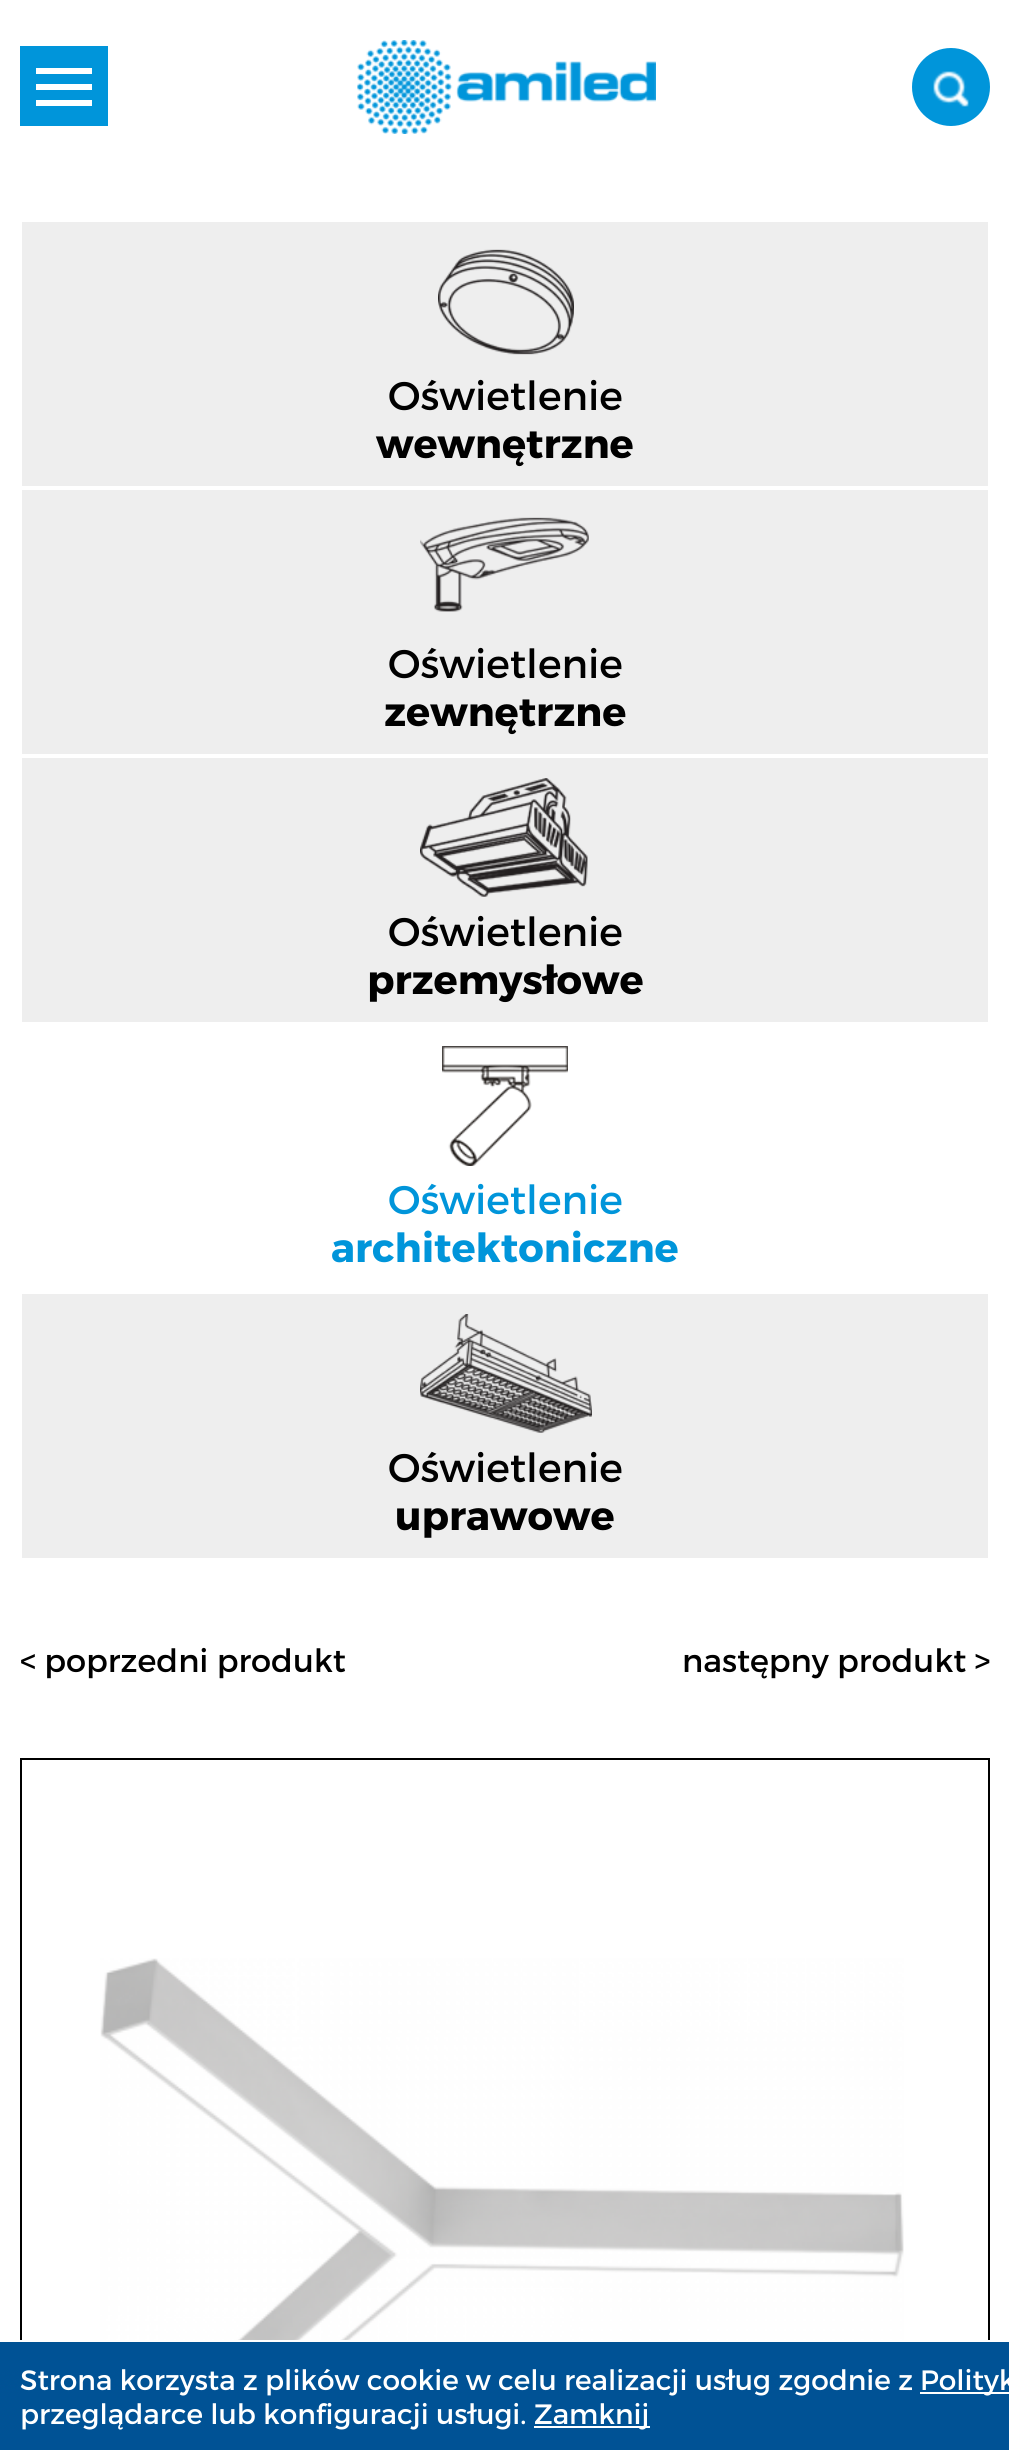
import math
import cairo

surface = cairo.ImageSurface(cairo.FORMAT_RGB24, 1009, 2450)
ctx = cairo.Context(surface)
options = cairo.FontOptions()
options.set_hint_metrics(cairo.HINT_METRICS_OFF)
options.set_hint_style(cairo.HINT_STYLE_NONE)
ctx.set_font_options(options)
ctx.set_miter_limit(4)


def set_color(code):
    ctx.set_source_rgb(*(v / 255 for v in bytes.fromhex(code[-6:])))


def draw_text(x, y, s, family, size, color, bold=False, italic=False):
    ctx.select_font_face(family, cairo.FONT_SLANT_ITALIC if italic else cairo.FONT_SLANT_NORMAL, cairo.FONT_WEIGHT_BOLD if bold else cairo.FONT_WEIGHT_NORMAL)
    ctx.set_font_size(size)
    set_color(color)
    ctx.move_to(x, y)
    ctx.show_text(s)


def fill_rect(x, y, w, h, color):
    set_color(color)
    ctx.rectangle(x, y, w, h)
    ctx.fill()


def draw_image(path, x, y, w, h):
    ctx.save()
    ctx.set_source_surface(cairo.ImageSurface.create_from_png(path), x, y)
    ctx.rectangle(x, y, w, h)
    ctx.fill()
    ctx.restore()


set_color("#ffffff")
ctx.paint()
fill_rect(20, 46, 88, 80, "#0095da")
fill_rect(36, 68, 56, 6, "#ffffff")
fill_rect(36, 84, 56, 6, "#ffffff")
fill_rect(36, 100, 56, 6, "#ffffff")
draw_image("assets/img1.png", 357, 40, 299, 94)
set_color("#0095da")
ctx.arc(951, 87, 39, 0, 2 * math.pi)
ctx.fill()
draw_image("assets/img2.png", 933, 71, 36, 36)
fill_rect(22, 222, 966, 264, "#eeeeee")
draw_image("assets/img3.png", 438, 249, 136, 106)
draw_text(388, 410, "Oświetlenie", "Montserrat", 40, "#000000")
draw_text(376, 458, "wewnętrzne", "Montserrat", 40, "#000000", bold=True)
fill_rect(22, 490, 966, 264, "#eeeeee")
draw_image("assets/img4.png", 420, 517, 169, 95)
draw_text(388, 678, "Oświetlenie", "Montserrat", 40, "#000000")
draw_text(384, 726, "zewnętrzne", "Montserrat", 40, "#000000", bold=True)
fill_rect(22, 758, 966, 264, "#eeeeee")
draw_image("assets/img5.png", 420, 778, 168, 119)
draw_text(388, 946, "Oświetlenie", "Montserrat", 40, "#000000")
draw_text(367, 994, "przemysłowe", "Montserrat", 40, "#000000", bold=True)
draw_image("assets/img6.png", 442, 1046, 126, 120)
draw_text(388, 1214, "Oświetlenie", "Montserrat", 40, "#0095da")
draw_text(331, 1262, "architektoniczne", "Montserrat", 40, "#0095da", bold=True)
fill_rect(22, 1294, 966, 264, "#eeeeee")
draw_image("assets/img7.png", 420, 1314, 172, 119)
draw_text(388, 1482, "Oświetlenie", "Montserrat", 40, "#000000")
draw_text(395, 1530, "uprawowe", "Montserrat", 40, "#000000", bold=True)
draw_text(20, 1672, "< poprzedni produkt", "Montserrat", 32, "#000000")
draw_text(682, 1672, "następny produkt >", "Montserrat", 32, "#000000")
ctx.rectangle(21, 1759, 968, 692)
ctx.stroke()
draw_image("assets/img8.png", 100, 1958, 804, 382)
fill_rect(0, 2342, 1009, 108, "#005295")
fill_rect(20, 2340, 970, 2, "#ffffff")
draw_text(20, 2390, "Strona korzysta z plików cookie w celu realizacji usług zgodnie z", "Montserrat", 28, "#ffffff")
fill_rect(920, 2392, 89, 2, "#ffffff")
draw_text(920, 2390, "Polityk", "Montserrat", 28, "#ffffff")
draw_text(20, 2424, "przeglądarce lub konfiguracji usługi.", "Montserrat", 28, "#ffffff")
fill_rect(534, 2426, 116, 2, "#ffffff")
draw_text(534, 2424, "Zamknij", "Montserrat", 28, "#ffffff")
surface.write_to_png("output.png")
